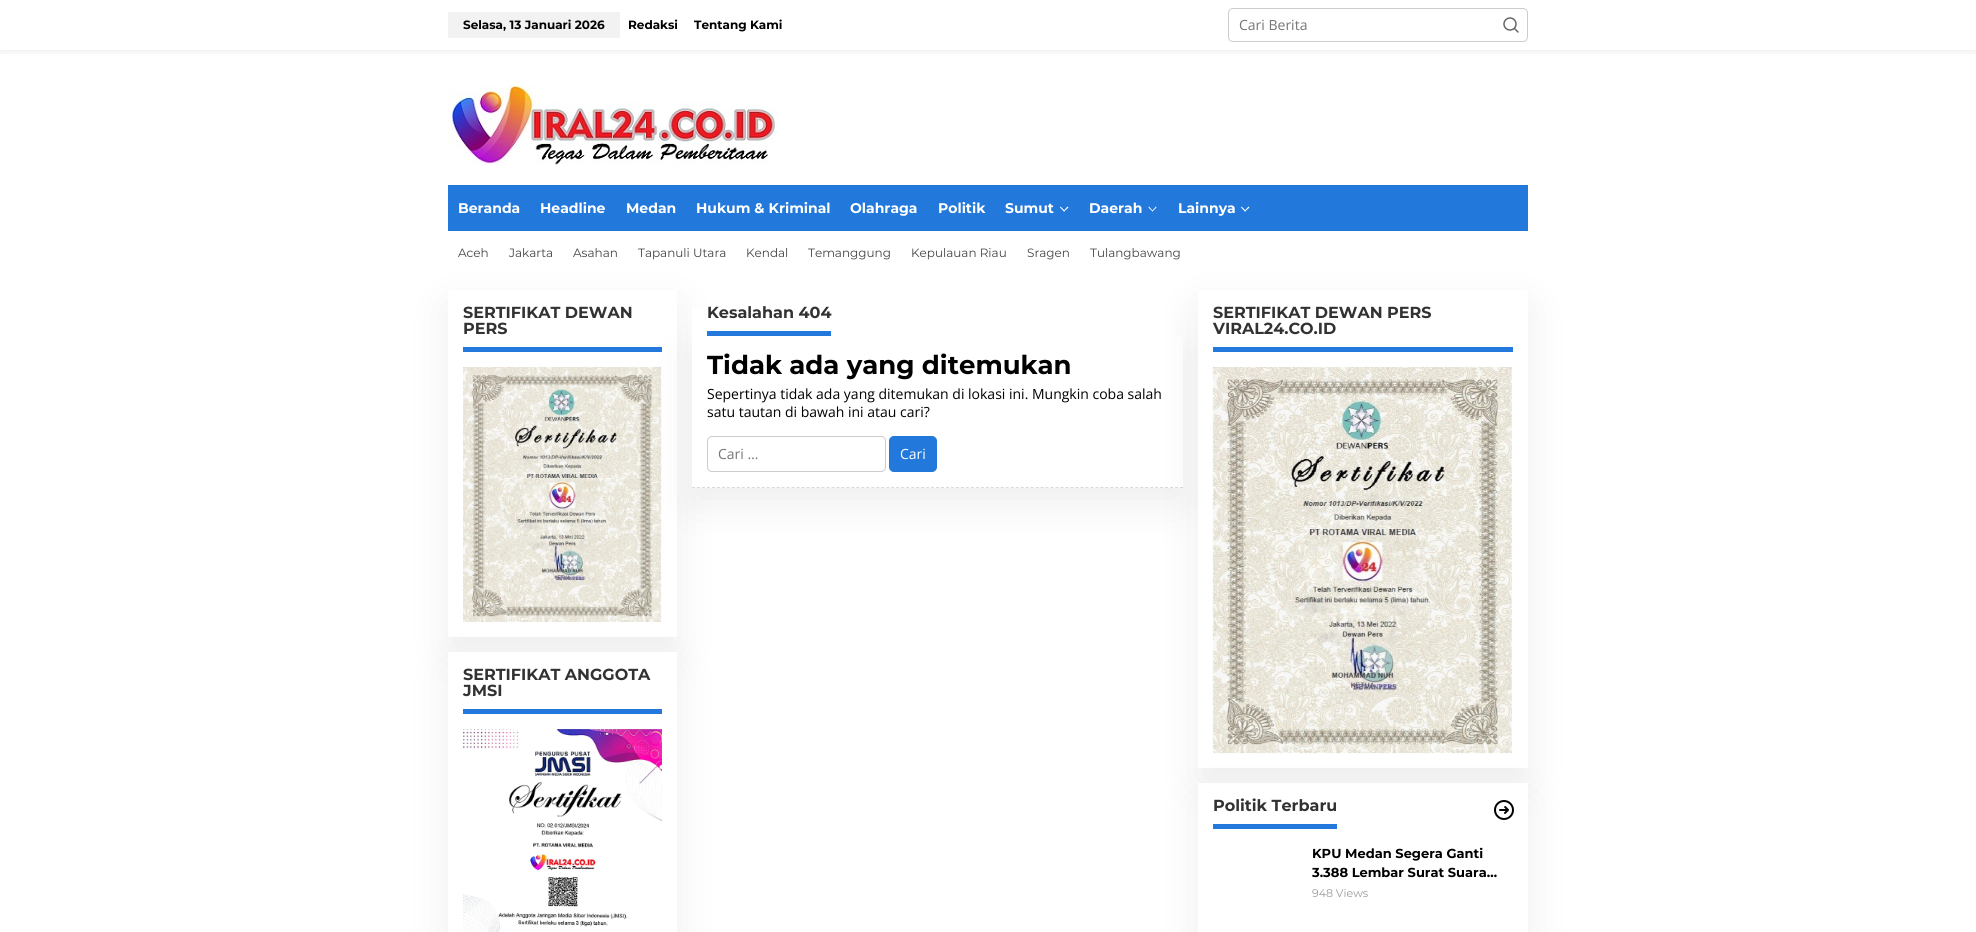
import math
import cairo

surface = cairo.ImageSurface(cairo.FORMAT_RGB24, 1976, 932)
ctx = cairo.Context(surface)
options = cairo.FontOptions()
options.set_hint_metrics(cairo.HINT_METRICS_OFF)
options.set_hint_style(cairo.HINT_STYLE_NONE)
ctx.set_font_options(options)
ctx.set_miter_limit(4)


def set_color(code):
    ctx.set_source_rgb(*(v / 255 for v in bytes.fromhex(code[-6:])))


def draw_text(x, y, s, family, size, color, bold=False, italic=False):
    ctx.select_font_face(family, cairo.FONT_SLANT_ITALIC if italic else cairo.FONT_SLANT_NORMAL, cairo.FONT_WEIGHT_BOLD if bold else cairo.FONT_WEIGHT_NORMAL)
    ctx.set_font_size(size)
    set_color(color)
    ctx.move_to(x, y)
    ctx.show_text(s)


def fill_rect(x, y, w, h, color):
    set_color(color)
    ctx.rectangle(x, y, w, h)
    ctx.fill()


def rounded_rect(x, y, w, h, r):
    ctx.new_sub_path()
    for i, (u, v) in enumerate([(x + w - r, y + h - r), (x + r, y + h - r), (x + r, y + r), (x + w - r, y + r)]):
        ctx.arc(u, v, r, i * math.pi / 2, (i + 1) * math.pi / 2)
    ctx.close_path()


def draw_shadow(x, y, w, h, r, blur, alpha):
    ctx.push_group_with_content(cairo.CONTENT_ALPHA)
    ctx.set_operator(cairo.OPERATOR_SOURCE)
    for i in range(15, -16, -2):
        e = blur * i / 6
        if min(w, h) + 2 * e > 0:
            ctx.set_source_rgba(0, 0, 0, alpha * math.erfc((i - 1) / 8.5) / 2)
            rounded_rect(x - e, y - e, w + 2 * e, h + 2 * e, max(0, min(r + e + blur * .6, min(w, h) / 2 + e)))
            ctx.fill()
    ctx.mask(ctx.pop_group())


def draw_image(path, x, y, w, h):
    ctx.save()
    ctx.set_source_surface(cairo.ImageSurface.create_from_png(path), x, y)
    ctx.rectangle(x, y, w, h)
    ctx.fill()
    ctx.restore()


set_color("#ffffff")
ctx.paint()
ctx.save()
ctx.rectangle(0, 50, 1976, 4)
ctx.clip()
set_color("#000000")
draw_shadow(0, 0, 1976, 50, 0, 5, 0.1)
ctx.restore()
fill_rect(448, 12, 172, 26, "#f2f2f2")
draw_text(463, 29, "Selasa, 13 Januari 2026", "Montserrat", 12, "#000000", bold=True)
draw_text(628, 29, "Redaksi", "Montserrat", 12, "#000000", bold=True)
draw_text(694, 29, "Tentang Kami", "Montserrat", 12, "#000000", bold=True)
rounded_rect(1228.5, 8.5, 299, 33, 4.5)
set_color("#cccccc")
ctx.set_line_width(1)
ctx.stroke()
draw_text(1239, 30, "Cari Berita", "Open Sans", 14, "#757575")
ctx.new_path()
ctx.arc(1510, 24, 6, 0, 2 * math.pi)
set_color("#666666")
ctx.set_line_width(1.5)
ctx.stroke()
ctx.new_path()
ctx.move_to(1518, 32)
ctx.line_to(1514.5, 28.5)
ctx.set_line_cap(cairo.LINE_CAP_ROUND)
ctx.set_line_join(cairo.LINE_JOIN_ROUND)
ctx.stroke()
draw_image("assets/img1.png", 448, 85, 330, 80)
fill_rect(448, 185, 1080, 46, "#2379db")
draw_text(458, 213, "Beranda", "Montserrat", 14, "#ffffff", bold=True)
draw_text(540, 213, "Headline", "Montserrat", 14, "#ffffff", bold=True)
draw_text(626, 213, "Medan", "Montserrat", 14, "#ffffff", bold=True)
draw_text(696, 213, "Hukum & Kriminal", "Montserrat", 14, "#ffffff", bold=True)
draw_text(850, 213, "Olahraga", "Montserrat", 14, "#ffffff", bold=True)
draw_text(938, 213, "Politik", "Montserrat", 14, "#ffffff", bold=True)
draw_text(1005, 213, "Sumut", "Montserrat", 14, "#ffffff", bold=True)
ctx.new_path()
ctx.move_to(1067.5, 206.5)
ctx.line_to(1068.5, 207.5)
ctx.line_to(1064, 211.5)
ctx.line_to(1063.5, 211)
ctx.close_path()
ctx.fill()
ctx.new_path()
ctx.move_to(1060.5, 206.5)
ctx.line_to(1065, 211)
ctx.line_to(1064, 211.5)
ctx.line_to(1060, 207.5)
ctx.close_path()
ctx.fill()
draw_text(1089, 213, "Daerah", "Montserrat", 14, "#ffffff", bold=True)
ctx.new_path()
ctx.move_to(1156, 206.5)
ctx.line_to(1156.5, 207.5)
ctx.line_to(1152.5, 211.5)
ctx.line_to(1152, 211)
ctx.close_path()
ctx.fill()
ctx.new_path()
ctx.move_to(1149, 206.5)
ctx.line_to(1153, 211)
ctx.line_to(1152.5, 211.5)
ctx.line_to(1148.5, 207.5)
ctx.close_path()
ctx.fill()
draw_text(1178, 213, "Lainnya", "Montserrat", 14, "#ffffff", bold=True)
ctx.new_path()
ctx.move_to(1248.5, 206.5)
ctx.line_to(1249.5, 207.5)
ctx.line_to(1245, 211.5)
ctx.line_to(1244.5, 211)
ctx.close_path()
ctx.fill()
ctx.new_path()
ctx.move_to(1241.5, 206.5)
ctx.line_to(1246, 211)
ctx.line_to(1245, 211.5)
ctx.line_to(1241, 207.5)
ctx.close_path()
ctx.fill()
draw_text(458, 257, "Aceh", "Montserrat", 12, "#444444")
draw_text(509, 257, "Jakarta", "Montserrat", 12, "#444444")
draw_text(573, 257, "Asahan", "Montserrat", 12, "#444444")
draw_text(638, 257, "Tapanuli Utara", "Montserrat", 12, "#444444")
draw_text(746, 257, "Kendal", "Montserrat", 12, "#444444")
draw_text(808, 257, "Temanggung", "Montserrat", 12, "#444444")
draw_text(911, 257, "Kepulauan Riau", "Montserrat", 12, "#444444")
draw_text(1027, 257, "Sragen", "Montserrat", 12, "#444444")
draw_text(1090, 257, "Tulangbawang", "Montserrat", 12, "#444444")
ctx.save()
ctx.set_fill_rule(cairo.FILL_RULE_EVEN_ODD)
ctx.new_path()
ctx.move_to(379, 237)
ctx.line_to(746, 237)
ctx.line_to(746, 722)
ctx.line_to(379, 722)
ctx.close_path()
ctx.move_to(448, 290)
ctx.line_to(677, 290)
ctx.line_to(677, 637)
ctx.line_to(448, 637)
ctx.close_path()
ctx.clip()
set_color("#000000")
draw_shadow(448, 306, 229, 347, 0, 22.5, 0.07)
ctx.restore()
fill_rect(463, 347, 199, 5, "#2379db")
draw_text(463, 318, "SERTIFIKAT DEWAN", "Montserrat", 16, "#323233", bold=True)
draw_text(463, 334, "PERS", "Montserrat", 16, "#323233", bold=True)
set_color("#000000")
draw_shadow(448, 668, 229, 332, 0, 22.5, 0.07)
draw_image("assets/img2.png", 463, 367, 199, 255)
fill_rect(448, 652, 229, 280, "#ffffff")
fill_rect(463, 709, 199, 5, "#2379db")
draw_text(463, 680, "SERTIFIKAT ANGGOTA", "Montserrat", 16, "#323233", bold=True)
draw_text(463, 696, "JMSI", "Montserrat", 16, "#323233", bold=True)
draw_image("assets/img3.png", 463, 729, 199, 203)
set_color("#000000")
draw_shadow(692, 352, 491, 152, 0, 22.5, 0.07)
fill_rect(692, 307, 484, 29, "#ffffff")
fill_rect(707, 331, 124, 5, "#2379db")
draw_text(707, 318, "Kesalahan 404", "Montserrat", 16, "#323233", bold=True)
fill_rect(692, 336, 491, 152, "#ffffff")
ctx.new_path()
ctx.move_to(692, 487.5)
ctx.line_to(1183, 487.5)
set_color("#d9d9d9")
ctx.set_line_width(1)
ctx.set_line_cap(cairo.LINE_CAP_BUTT)
ctx.set_line_join(cairo.LINE_JOIN_MITER)
ctx.set_dash([3, 1.98])
ctx.stroke()
draw_text(707, 374, "Tidak ada yang ditemukan", "Montserrat", 26, "#000000", bold=True)
draw_text(707, 399, "Sepertinya tidak ada yang ditemukan di lokasi ini. Mungkin coba salah", "Open Sans", 14, "#000000")
draw_text(707, 417, "satu tautan di bawah ini atau cari?", "Open Sans", 14, "#000000")
rounded_rect(707.5, 436.5, 178, 35, 4.5)
set_color("#cccccc")
ctx.set_dash([])
ctx.stroke()
draw_text(718, 459, "Cari …", "Open Sans", 14, "#757575")
set_color("#2379db")
rounded_rect(889.5, 436.5, 47, 35, 4.5)
ctx.fill_preserve()
ctx.stroke()
draw_text(900, 459, "Cari", "Open Sans", 14, "#ffffff")
set_color("#000000")
draw_shadow(1198, 306, 330, 478, 0, 22.5, 0.07)
fill_rect(1198, 290, 330, 478, "#ffffff")
fill_rect(1213, 347, 300, 5, "#2379db")
draw_text(1213, 318, "SERTIFIKAT DEWAN PERS", "Montserrat", 16, "#323233", bold=True)
draw_text(1213, 334, "VIRAL24.CO.ID", "Montserrat", 16, "#323233", bold=True)
set_color("#000000")
draw_shadow(1198, 799, 330, 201, 0, 22.5, 0.07)
draw_image("assets/img4.png", 1212, 367, 300, 387)
fill_rect(1198, 783, 330, 149, "#ffffff")
fill_rect(1213, 824, 124, 5, "#2379db")
draw_text(1213, 811, "Politik Terbaru", "Montserrat", 16, "#323233", bold=True)
draw_image("assets/img5.png", 1494, 800, 20, 20)
draw_text(1312, 858, "KPU Medan Segera Ganti", "Montserrat", 13, "#000000", bold=True)
draw_text(1312, 877, "3.388 Lembar Surat Suara…", "Montserrat", 13, "#000000", bold=True)
draw_text(1312, 897, "948 Views", "Montserrat", 11, "#999999")
surface.write_to_png("output.png")
